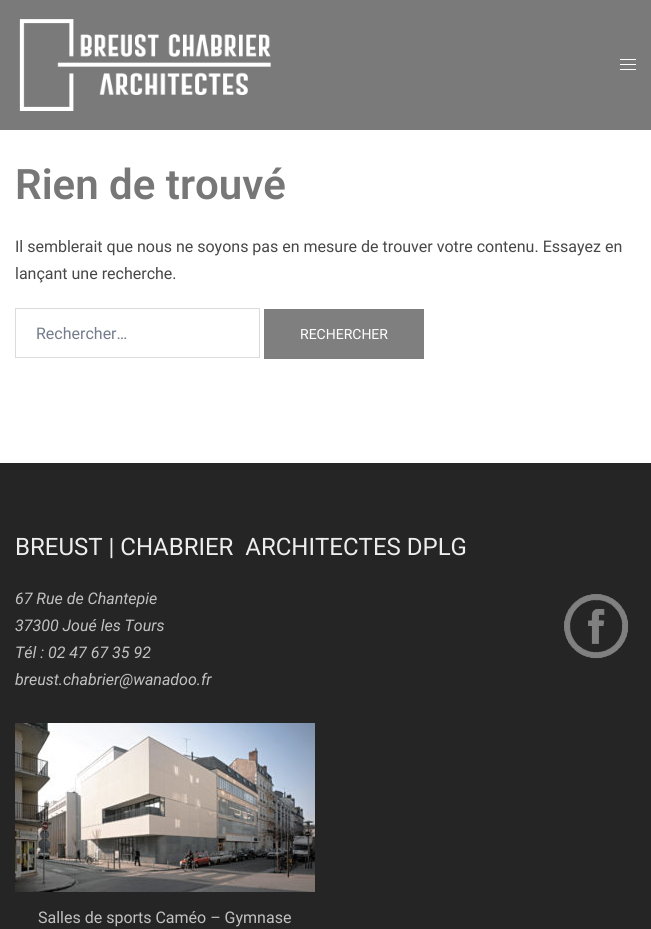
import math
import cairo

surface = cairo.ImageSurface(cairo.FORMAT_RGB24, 651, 929)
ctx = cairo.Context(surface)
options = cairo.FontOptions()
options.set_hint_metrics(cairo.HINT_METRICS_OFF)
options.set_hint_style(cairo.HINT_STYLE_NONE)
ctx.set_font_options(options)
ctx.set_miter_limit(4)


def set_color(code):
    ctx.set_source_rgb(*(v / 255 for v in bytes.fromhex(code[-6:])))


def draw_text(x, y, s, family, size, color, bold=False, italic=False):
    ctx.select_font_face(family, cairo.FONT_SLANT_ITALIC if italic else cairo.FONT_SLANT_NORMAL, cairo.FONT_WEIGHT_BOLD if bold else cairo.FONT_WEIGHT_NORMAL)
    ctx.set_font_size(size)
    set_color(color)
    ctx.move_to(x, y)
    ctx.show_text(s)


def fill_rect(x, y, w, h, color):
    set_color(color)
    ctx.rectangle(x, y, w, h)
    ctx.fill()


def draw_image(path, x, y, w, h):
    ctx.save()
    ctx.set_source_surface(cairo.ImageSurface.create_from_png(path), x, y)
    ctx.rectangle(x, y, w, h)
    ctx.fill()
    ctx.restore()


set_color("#ffffff")
ctx.paint()
fill_rect(0, 0, 651, 130, "#7a7a7a")
draw_image("assets/img1.png", 19, 19, 252, 92)
fill_rect(620, 59, 16, 1, "#ffffff")
fill_rect(620, 64, 16, 1, "#ffffff")
fill_rect(620, 69, 16, 1, "#ffffff")
draw_text(15, 199, "Rien de trouvé", "Roboto SemiBold", 42, "#777777")
draw_text(15, 252, "Il semblerait que nous ne soyons pas en mesure de trouver votre contenu. Essayez en", "Roboto", 16, "#474747")
draw_text(15, 279, "lançant une recherche.", "Roboto", 16, "#474747")
ctx.rectangle(15.5, 308.5, 244, 49)
set_color("#dbdbdb")
ctx.set_line_width(1)
ctx.stroke()
draw_text(36, 339, "Rechercher…", "Roboto", 16, "#737c8c")
fill_rect(264, 309, 160, 50, "#7f7f7f")
draw_text(300, 339, "RECHERCHER", "Roboto", 14, "#ffffff")
fill_rect(0, 463, 651, 466, "#252525")
draw_text(15, 555, "BREUST | CHABRIER  ARCHITECTES DPLG", "Roboto", 24, "#eeeeee")
draw_text(15, 604, "67 Rue de Chantepie", "Roboto", 16, "#c1c1c1", italic=True)
draw_text(15, 631, "37300 Joué les Tours", "Roboto", 16, "#c1c1c1", italic=True)
draw_text(15, 658, "Tél : 02 47 67 35 92", "Roboto", 16, "#c1c1c1", italic=True)
draw_image("assets/img2.png", 564, 594, 65, 65)
draw_text(15, 685, "breust.chabrier@wanadoo.fr", "Roboto", 16, "#c1c1c1", italic=True)
draw_image("assets/img3.png", 15, 723, 300, 169)
draw_text(38, 923, "Salles de sports Caméo – Gymnase", "Roboto", 16, "#c1c1c1")
surface.write_to_png("output.png")
